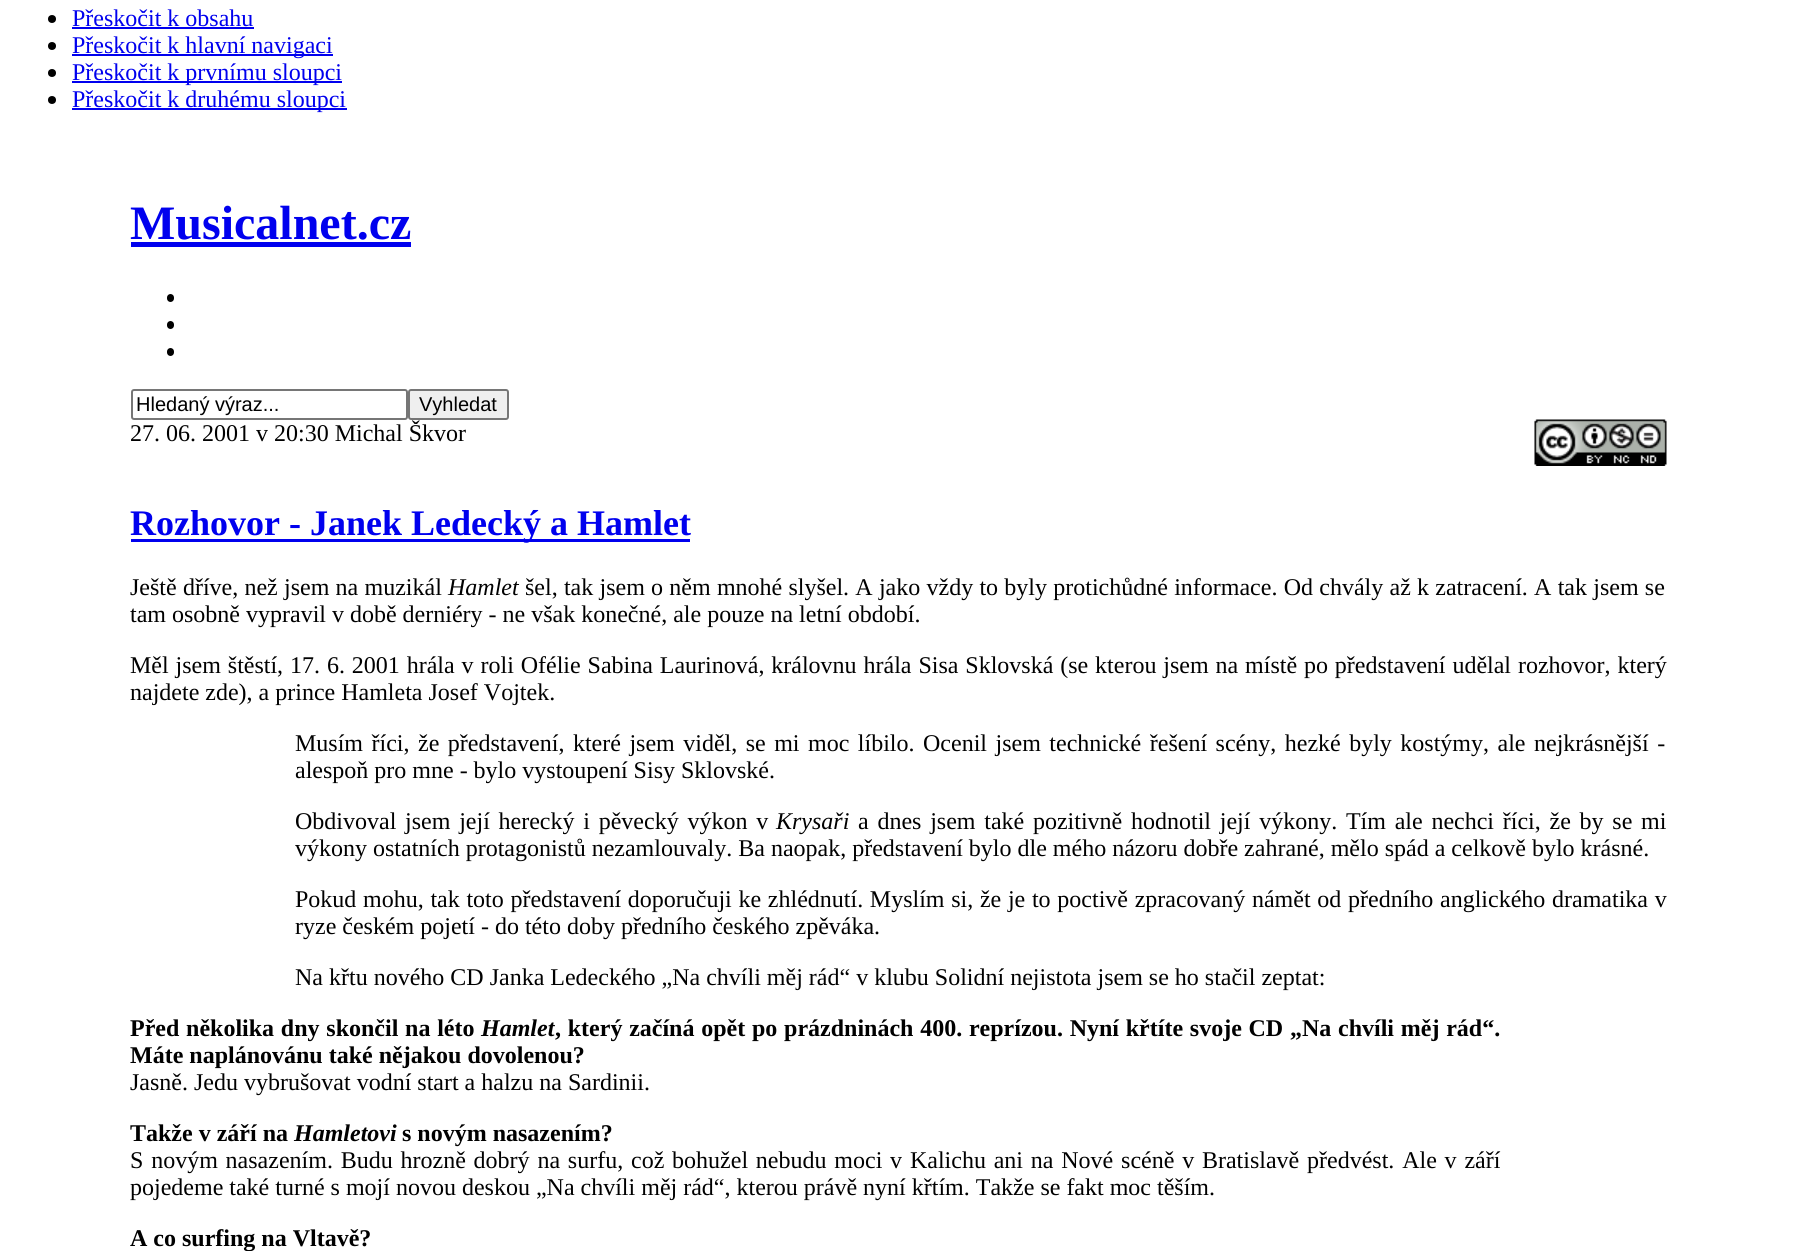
import math
import cairo

surface = cairo.ImageSurface(cairo.FORMAT_RGB24, 1795, 1251)
ctx = cairo.Context(surface)
options = cairo.FontOptions()
options.set_hint_metrics(cairo.HINT_METRICS_OFF)
options.set_hint_style(cairo.HINT_STYLE_NONE)
ctx.set_font_options(options)
ctx.set_miter_limit(4)


def set_color(code):
    ctx.set_source_rgb(*(v / 255 for v in bytes.fromhex(code[-6:])))


def draw_text(x, y, s, family, size, color, bold=False, italic=False):
    ctx.select_font_face(family, cairo.FONT_SLANT_ITALIC if italic else cairo.FONT_SLANT_NORMAL, cairo.FONT_WEIGHT_BOLD if bold else cairo.FONT_WEIGHT_NORMAL)
    ctx.set_font_size(size)
    set_color(color)
    ctx.move_to(x, y)
    ctx.show_text(s)


def draw_spaced(x, y, s, letter, word):
    ctx.move_to(x, y)
    for ch in s:
        ctx.show_text(ch)
        ctx.rel_move_to(letter + word * (ch == ' '), 0)


def fill_rect(x, y, w, h, color):
    set_color(color)
    ctx.rectangle(x, y, w, h)
    ctx.fill()


def rounded_rect(x, y, w, h, r):
    ctx.new_sub_path()
    for i, (u, v) in enumerate([(x + w - r, y + h - r), (x + r, y + h - r), (x + r, y + r), (x + w - r, y + r)]):
        ctx.arc(u, v, r, i * math.pi / 2, (i + 1) * math.pi / 2)
    ctx.close_path()


def draw_image(path, x, y, w, h):
    ctx.save()
    ctx.set_source_surface(cairo.ImageSurface.create_from_png(path), x, y)
    ctx.rectangle(x, y, w, h)
    ctx.fill()
    ctx.restore()


set_color("#ffffff")
ctx.paint()
set_color("#000000")
ctx.arc(52, 19, 4, 0, 2 * math.pi)
ctx.fill()
draw_text(72, 26, "Přeskočit k obsahu", "Liberation Serif", 24, "#0000ee")
fill_rect(72, 27, 182, 2, "#0000ee")
set_color("#000000")
ctx.new_path()
ctx.arc(52, 46, 4, 0, 2 * math.pi)
ctx.fill()
fill_rect(72, 54, 261, 2, "#0000ee")
draw_text(72, 53, "Přeskočit k hlavní navigaci", "Liberation Serif", 24, "#0000ee")
set_color("#000000")
ctx.new_path()
ctx.arc(52, 73, 4, 0, 2 * math.pi)
ctx.fill()
fill_rect(72, 81, 270, 2, "#0000ee")
draw_text(72, 80, "Přeskočit k prvnímu sloupci", "Liberation Serif", 24, "#0000ee")
set_color("#000000")
ctx.new_path()
ctx.arc(52, 100, 4, 0, 2 * math.pi)
ctx.fill()
fill_rect(72, 108, 275, 2, "#0000ee")
draw_text(72, 107, "Přeskočit k druhému sloupci", "Liberation Serif", 24, "#0000ee")
draw_text(130, 239, "Musicalnet.cz", "Liberation Serif", 48, "#0000ee", bold=True)
fill_rect(131, 242, 280, 5, "#0000ee")
set_color("#000000")
rounded_rect(167, 294, 7, 8, 3.5)
ctx.fill()
rounded_rect(167, 321, 7, 8, 3.5)
ctx.fill()
rounded_rect(167, 348, 7, 8, 3.5)
ctx.fill()
rounded_rect(132, 390, 275, 29, 2)
set_color("#767676")
ctx.stroke()
draw_text(136, 411, "Hledaný výraz...", "Liberation Sans", 20, "#000000")
set_color("#efefef")
rounded_rect(409, 390, 99, 29, 2)
ctx.fill_preserve()
set_color("#767676")
ctx.stroke()
draw_text(419, 411, "Vyhledat", "Liberation Sans", 20, "#000000")
draw_image("assets/img1.png", 1534, 419, 133, 47)
draw_text(130, 441, "27. 06. 2001 v 20:30 Michal Škvor", "Liberation Serif", 24, "#000000")
fill_rect(131, 539, 559, 3, "#0000ee")
draw_text(130, 535, "Rozhovor - Janek Ledecký a Hamlet", "Liberation Serif", 36, "#0000ee", bold=True)
ctx.select_font_face("Liberation Serif")
ctx.set_font_size(24)
set_color("#000000")
draw_spaced(130, 595, "Ještě dříve, než jsem na muzikál", 0, 0.25)
draw_text(448, 595, "Hamlet", "Liberation Serif", 24, "#000000", italic=True)
ctx.select_font_face("Liberation Serif")
draw_spaced(525, 595, "šel, tak jsem o něm mnohé slyšel. A jako vždy to byly protichůdné informace. Od chvály až k zatracení. A tak jsem se", 0, 0.25)
draw_text(130, 622, "tam osobně vypravil v době derniéry - ne však konečné, ale pouze na letní období.", "Liberation Serif", 24, "#000000")
draw_spaced(130, 673, "Měl jsem štěstí, 17. 6. 2001 hrála v roli Ofélie Sabina Laurinová, královnu hrála Sisa Sklovská (se kterou jsem na místě po představení udělal rozhovor, který", 0, 0.9)
draw_text(130, 700, "najdete zde), a prince Hamleta Josef Vojtek.", "Liberation Serif", 24, "#000000")
draw_spaced(295, 751, "Musím říci, že představení, které jsem viděl, se mi moc líbilo. Ocenil jsem technické řešení scény, hezké byly kostýmy, ale nejkrásnější -", 0, 2.5)
draw_text(295, 778, "alespoň pro mne - bylo vystoupení Sisy Sklovské.", "Liberation Serif", 24, "#000000")
draw_spaced(295, 829, "Obdivoval jsem její herecký i pěvecký výkon v", 0, 2.75)
draw_text(776, 829, "Krysaři", "Liberation Serif", 24, "#000000", italic=True)
ctx.select_font_face("Liberation Serif")
draw_spaced(858, 829, "a dnes jsem také pozitivně hodnotil její výkony. Tím ale nechci říci, že by se mi", 0, 2.75)
draw_text(295, 856, "výkony ostatních protagonistů nezamlouvaly. Ba naopak, představení bylo dle mého názoru dobře zahrané, mělo spád a celkově bylo krásné.", "Liberation Serif", 24, "#000000")
draw_spaced(295, 907, "Pokud mohu, tak toto představení doporučuji ke zhlédnutí. Myslím si, že je to poctivě zpracovaný námět od předního anglického dramatika v", 0, 0.7)
draw_text(295, 934, "ryze českém pojetí - do této doby předního českého zpěváka.", "Liberation Serif", 24, "#000000")
draw_text(295, 985, "Na křtu nového CD Janka Ledeckého „Na chvíli měj rád“ v klubu Solidní nejistota jsem se ho stačil zeptat:", "Liberation Serif", 24, "#000000")
ctx.select_font_face("Liberation Serif", cairo.FONT_SLANT_NORMAL, cairo.FONT_WEIGHT_BOLD)
draw_spaced(130, 1036, "Před několika dny skončil na léto", 0, 0.75)
draw_text(481, 1036, "Hamlet", "Liberation Serif", 24, "#000000", bold=True, italic=True)
ctx.select_font_face("Liberation Serif", cairo.FONT_SLANT_NORMAL, cairo.FONT_WEIGHT_BOLD)
draw_spaced(555, 1036, ", který začíná opět po prázdninách 400. reprízou. Nyní křtíte svoje CD „Na chvíli měj rád“.", 0, 0.75)
draw_text(130, 1063, "Máte naplánovánu také nějakou dovolenou?", "Liberation Serif", 24, "#000000", bold=True)
draw_text(130, 1090, "Jasně. Jedu vybrušovat vodní start a halzu na Sardinii.", "Liberation Serif", 24, "#000000")
draw_text(130, 1141, "Takže v září na", "Liberation Serif", 24, "#000000", bold=True)
draw_text(294, 1141, "Hamletovi", "Liberation Serif", 24, "#000000", bold=True, italic=True)
draw_text(402, 1141, "s novým nasazením?", "Liberation Serif", 24, "#000000", bold=True)
ctx.select_font_face("Liberation Serif")
draw_spaced(130, 1168, "S novým nasazením. Budu hrozně dobrý na surfu, což bohužel nebudu moci v Kalichu ani na Nové scéně v Bratislavě předvést. Ale v září", 0, 1.8)
draw_text(130, 1195, "pojedeme také turné s mojí novou deskou „Na chvíli měj rád“, kterou právě nyní křtím. Takže se fakt moc těším.", "Liberation Serif", 24, "#000000")
draw_text(130, 1246, "A co surfing na Vltavě?", "Liberation Serif", 24, "#000000", bold=True)
surface.write_to_png("output.png")
